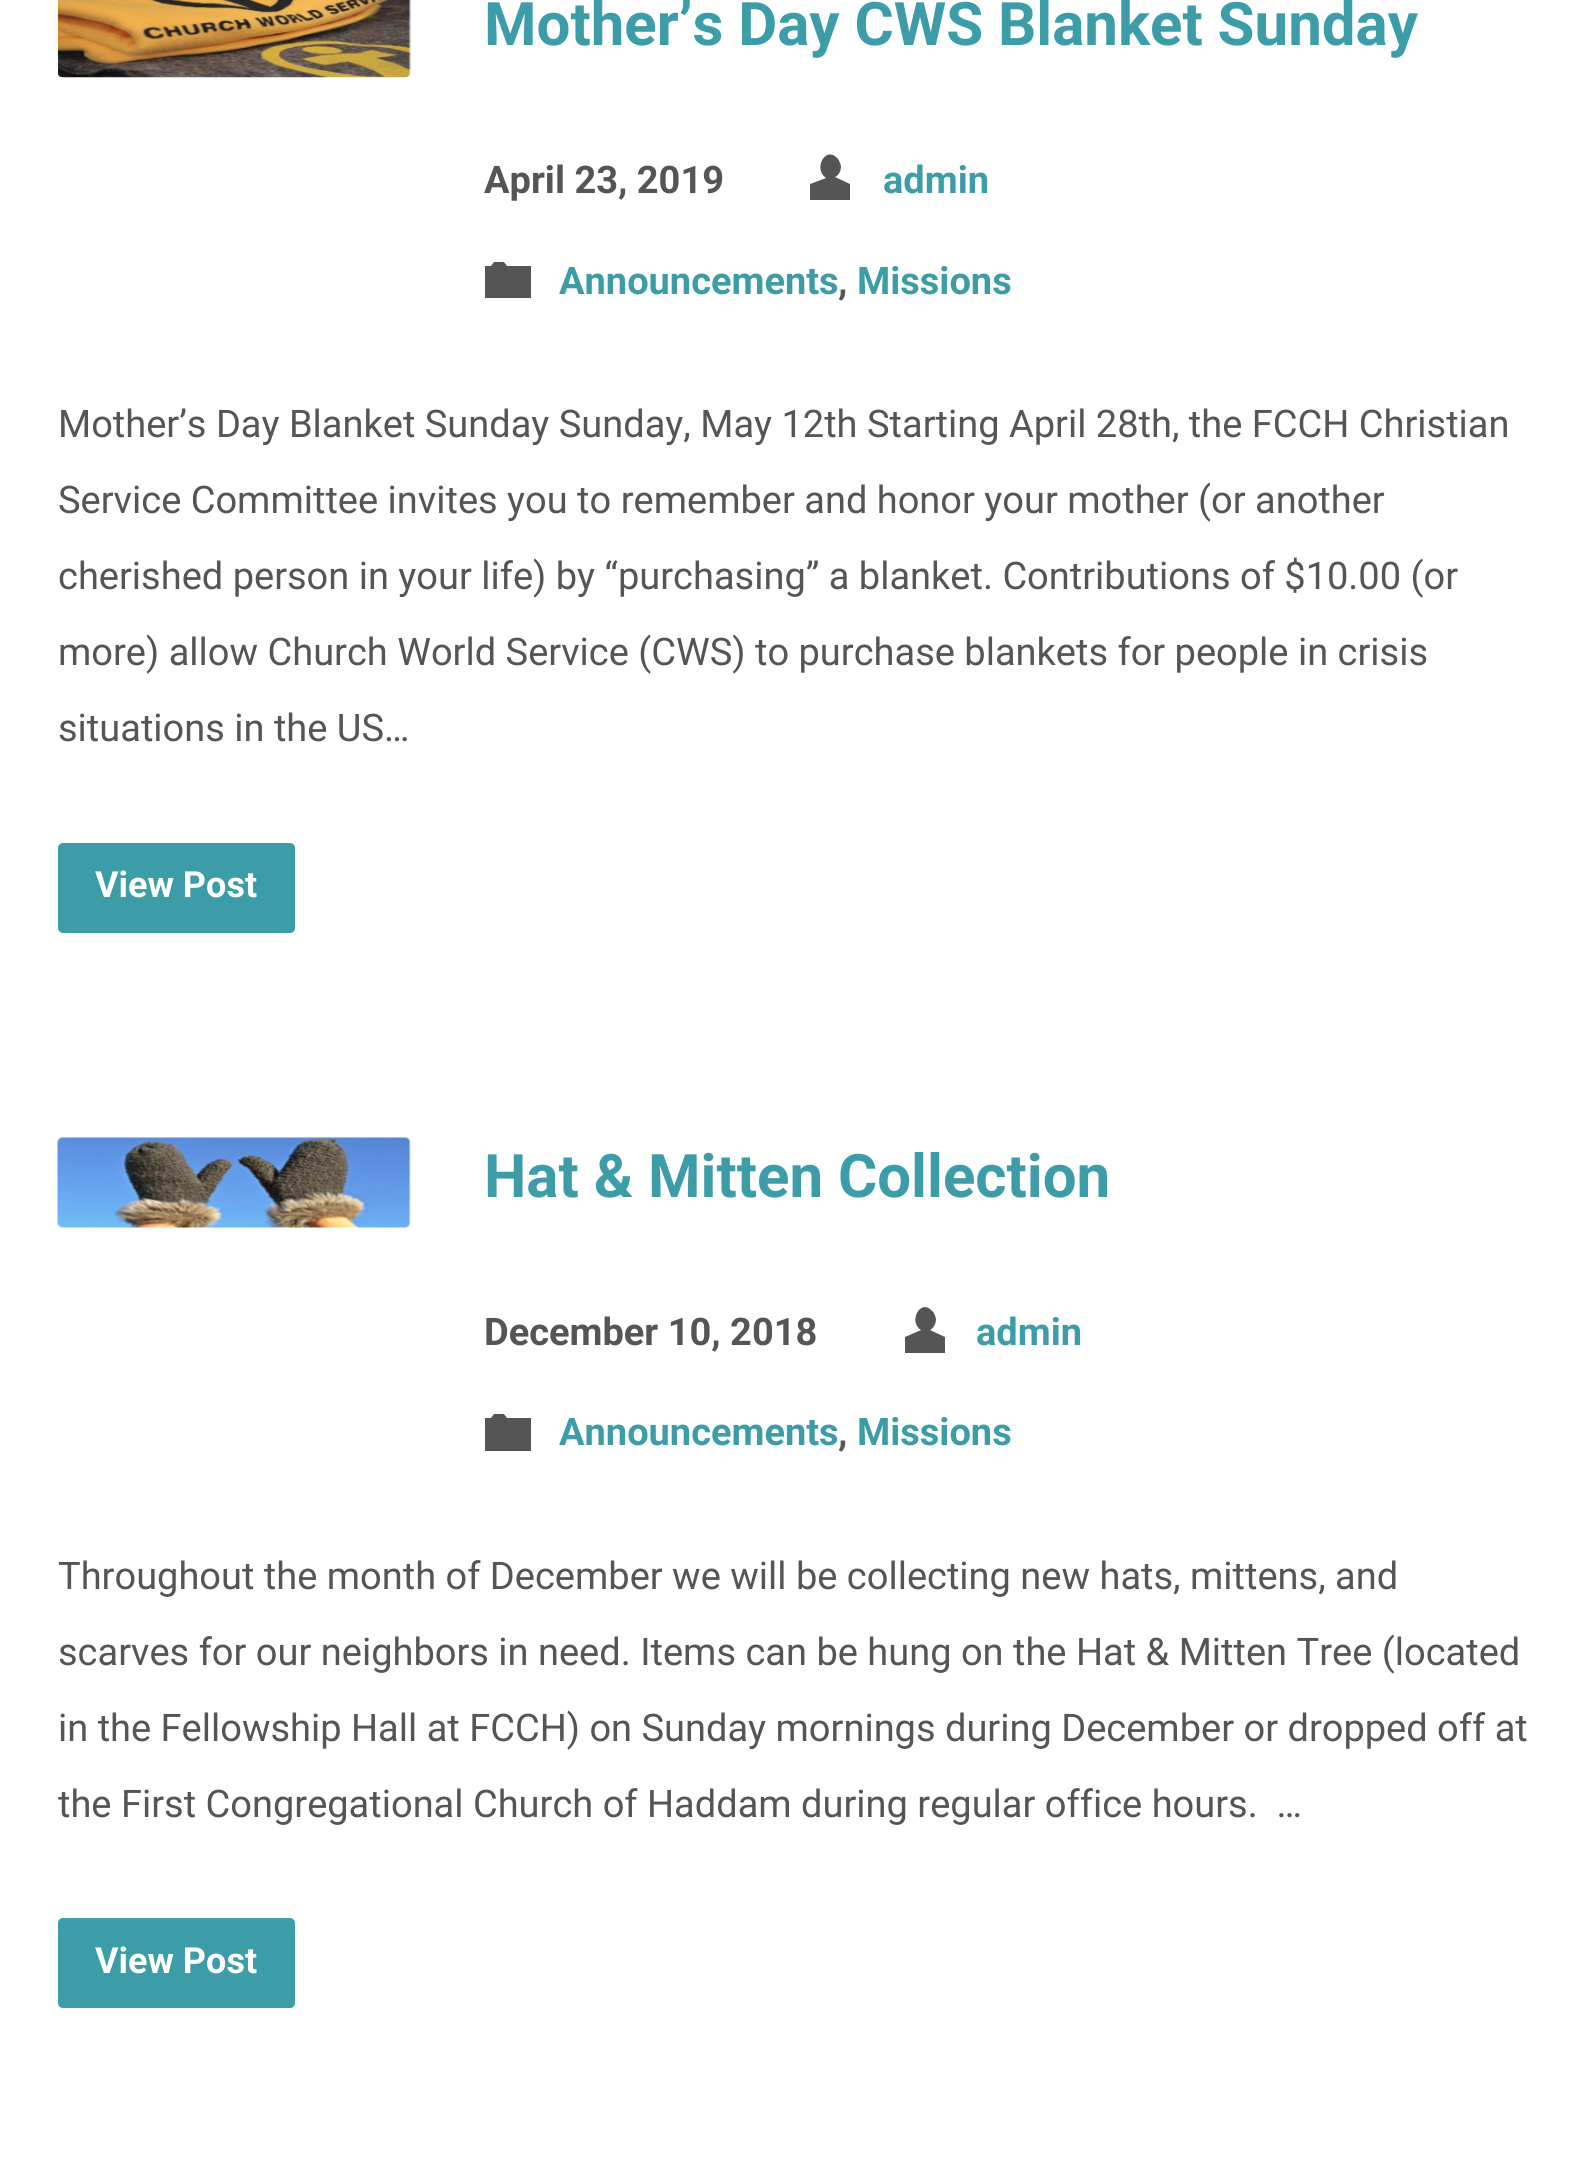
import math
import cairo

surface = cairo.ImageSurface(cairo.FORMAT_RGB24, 1583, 2175)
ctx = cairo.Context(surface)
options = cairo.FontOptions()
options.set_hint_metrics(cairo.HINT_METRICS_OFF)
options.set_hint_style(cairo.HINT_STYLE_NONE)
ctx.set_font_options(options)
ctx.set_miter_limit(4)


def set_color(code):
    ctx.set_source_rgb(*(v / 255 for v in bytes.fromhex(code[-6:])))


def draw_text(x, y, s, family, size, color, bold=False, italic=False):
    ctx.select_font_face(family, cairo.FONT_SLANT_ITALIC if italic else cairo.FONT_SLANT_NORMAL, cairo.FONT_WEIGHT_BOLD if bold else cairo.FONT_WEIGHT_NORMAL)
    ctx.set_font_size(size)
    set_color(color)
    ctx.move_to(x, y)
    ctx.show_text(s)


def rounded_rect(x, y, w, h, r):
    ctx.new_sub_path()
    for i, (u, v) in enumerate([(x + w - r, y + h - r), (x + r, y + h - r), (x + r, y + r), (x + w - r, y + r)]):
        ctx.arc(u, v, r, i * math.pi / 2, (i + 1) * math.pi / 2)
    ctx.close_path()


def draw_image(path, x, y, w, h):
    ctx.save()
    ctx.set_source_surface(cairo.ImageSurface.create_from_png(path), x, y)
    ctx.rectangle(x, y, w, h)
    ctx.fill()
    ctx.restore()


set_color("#ffffff")
ctx.paint()
draw_image("assets/img1.png", 58, 0, 353, 78)
draw_text(484, 45, "Mother’s Day CWS Blanket Sunday", "Roboto", 60, "#3c9ca7", bold=True)
draw_text(484, 193, "April 23, 2019", "Roboto", 38, "#555555", bold=True)
ctx.new_path()
ctx.move_to(850, 184)
ctx.line_to(850, 200)
ctx.line_to(810, 200)
ctx.line_to(810, 184)
ctx.line_to(826, 178)
ctx.curve_to(813, 169, 825, 147, 836, 157)
ctx.curve_to(839, 159, 840, 163, 841, 166)
ctx.curve_to(841, 171, 839, 175, 835, 177)
ctx.close_path()
ctx.fill()
draw_text(883, 193, "admin", "Roboto", 38, "#3c9ca7", bold=True)
set_color("#555555")
ctx.new_path()
ctx.move_to(494, 262)
ctx.line_to(491, 266)
ctx.line_to(485, 266)
ctx.line_to(485, 298)
ctx.line_to(531, 298)
ctx.line_to(531, 266)
ctx.line_to(507, 266)
ctx.line_to(504, 262)
ctx.close_path()
ctx.fill()
draw_text(559, 294, "Announcements", "Roboto", 38, "#3c9ca7", bold=True)
draw_text(838, 294, ",", "Roboto", 38, "#555555", bold=True)
draw_text(857, 294, "Missions", "Roboto", 38, "#3c9ca7", bold=True)
draw_text(58, 437, "Mother’s Day Blanket Sunday Sunday, May 12th Starting April 28th, the FCCH Christian", "Roboto", 38, "#555555")
draw_text(58, 513, "Service Committee invites you to remember and honor your mother (or another", "Roboto", 38, "#555555")
draw_text(58, 589, "cherished person in your life) by “purchasing” a blanket. Contributions of $10.00 (or", "Roboto", 38, "#555555")
draw_text(58, 665, "more) allow Church World Service (CWS) to purchase blankets for people in crisis", "Roboto", 38, "#555555")
draw_text(58, 741, "situations in the US…", "Roboto", 38, "#555555")
set_color("#3c9ca7")
rounded_rect(58, 843, 237, 90, 5)
ctx.fill()
draw_text(95, 897, "View Post", "Roboto", 36, "#ffffff", bold=True)
draw_image("assets/img2.png", 57, 1137, 354, 91)
draw_text(484, 1197, "Hat & Mitten Collection", "Roboto", 60, "#3c9ca7", bold=True)
draw_text(484, 1345, "December 10, 2018", "Roboto", 38, "#555555", bold=True)
ctx.new_path()
ctx.move_to(945, 1337)
ctx.line_to(945, 1353)
ctx.line_to(905, 1353)
ctx.line_to(905, 1337)
ctx.line_to(921, 1330)
ctx.curve_to(908, 1322, 920, 1299, 931, 1310)
ctx.curve_to(934, 1312, 935, 1315, 936, 1319)
ctx.curve_to(936, 1323, 934, 1328, 930, 1330)
ctx.close_path()
ctx.fill()
draw_text(976, 1345, "admin", "Roboto", 38, "#3c9ca7", bold=True)
set_color("#555555")
ctx.new_path()
ctx.move_to(494, 1414)
ctx.line_to(491, 1418)
ctx.line_to(485, 1418)
ctx.line_to(485, 1451)
ctx.line_to(531, 1451)
ctx.line_to(531, 1418)
ctx.line_to(507, 1418)
ctx.line_to(504, 1414)
ctx.close_path()
ctx.fill()
draw_text(559, 1445, "Announcements", "Roboto", 38, "#3c9ca7", bold=True)
draw_text(838, 1445, ",", "Roboto", 38, "#555555", bold=True)
draw_text(857, 1445, "Missions", "Roboto", 38, "#3c9ca7", bold=True)
draw_text(58, 1589, "Throughout the month of December we will be collecting new hats, mittens, and", "Roboto", 38, "#555555")
draw_text(58, 1665, "scarves for our neighbors in need. Items can be hung on the Hat & Mitten Tree (located", "Roboto", 38, "#555555")
draw_text(58, 1741, "in the Fellowship Hall at FCCH) on Sunday mornings during December or dropped off at", "Roboto", 38, "#555555")
draw_text(58, 1817, "the First Congregational Church of Haddam during regular office hours.  …", "Roboto", 38, "#555555")
set_color("#3c9ca7")
rounded_rect(58, 1918, 237, 90, 5)
ctx.fill()
draw_text(95, 1973, "View Post", "Roboto", 36, "#ffffff", bold=True)
surface.write_to_png("output.png")
